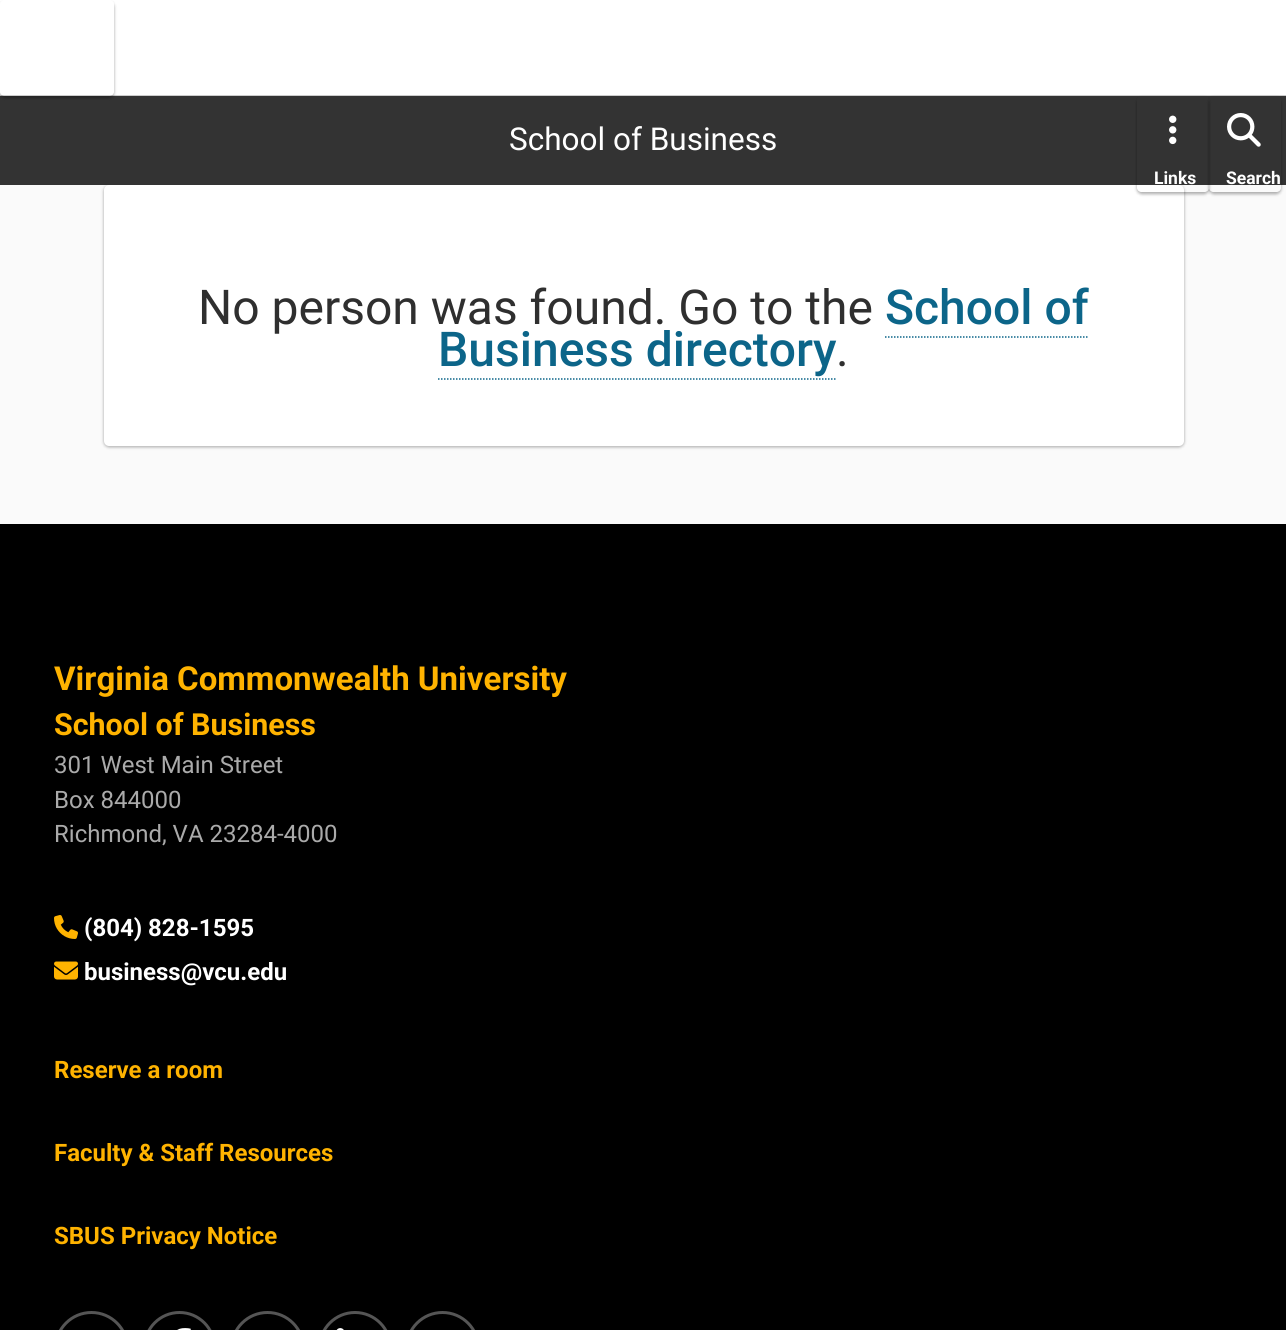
import math
import cairo

surface = cairo.ImageSurface(cairo.FORMAT_RGB24, 1286, 1330)
ctx = cairo.Context(surface)
options = cairo.FontOptions()
options.set_hint_metrics(cairo.HINT_METRICS_OFF)
options.set_hint_style(cairo.HINT_STYLE_NONE)
ctx.set_font_options(options)
ctx.set_miter_limit(4)


def set_color(code):
    ctx.set_source_rgb(*(v / 255 for v in bytes.fromhex(code[-6:])))


def draw_text(x, y, s, family, size, color, bold=False, italic=False):
    ctx.select_font_face(family, cairo.FONT_SLANT_ITALIC if italic else cairo.FONT_SLANT_NORMAL, cairo.FONT_WEIGHT_BOLD if bold else cairo.FONT_WEIGHT_NORMAL)
    ctx.set_font_size(size)
    set_color(color)
    ctx.move_to(x, y)
    ctx.show_text(s)


def fill_rect(x, y, w, h, color):
    set_color(color)
    ctx.rectangle(x, y, w, h)
    ctx.fill()


def rounded_rect(x, y, w, h, r):
    ctx.new_sub_path()
    for i, (u, v) in enumerate([(x + w - r, y + h - r), (x + r, y + h - r), (x + r, y + r), (x + w - r, y + r)]):
        ctx.arc(u, v, r, i * math.pi / 2, (i + 1) * math.pi / 2)
    ctx.close_path()


def draw_shadow(x, y, w, h, r, blur, alpha):
    ctx.push_group_with_content(cairo.CONTENT_ALPHA)
    ctx.set_operator(cairo.OPERATOR_SOURCE)
    for i in range(15, -16, -2):
        e = blur * i / 6
        if min(w, h) + 2 * e > 0:
            ctx.set_source_rgba(0, 0, 0, alpha * math.erfc((i - 1) / 8.5) / 2)
            rounded_rect(x - e, y - e, w + 2 * e, h + 2 * e, max(0, min(r + e + blur * .6, min(w, h) / 2 + e)))
            ctx.fill()
    ctx.mask(ctx.pop_group())


def draw_image(path, x, y, w, h):
    ctx.save()
    ctx.set_source_surface(cairo.ImageSurface.create_from_png(path), x, y)
    ctx.rectangle(x, y, w, h)
    ctx.fill()
    ctx.restore()


set_color("#fafafa")
ctx.paint()
fill_rect(0, 0, 1286, 95, "#ffffff")
fill_rect(0, 95, 1286, 1, "#cccccc")
set_color("#000000")
draw_shadow(104, 186, 1080, 261, 5, 1.5, 0.24)
draw_shadow(104, 186, 1080, 261, 5, 2, 0.12)
fill_rect(0, 96, 1286, 89, "#333333")
ctx.save()
ctx.set_fill_rule(cairo.FILL_RULE_EVEN_ODD)
ctx.new_path()
ctx.move_to(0, 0)
ctx.line_to(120, 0)
ctx.line_to(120, 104)
ctx.line_to(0, 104)
ctx.close_path()
ctx.move_to(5, 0)
ctx.line_to(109, 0)
ctx.curve_to(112, 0, 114, 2, 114, 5)
ctx.line_to(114, 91)
ctx.curve_to(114, 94, 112, 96, 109, 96)
ctx.line_to(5, 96)
ctx.curve_to(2, 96, 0, 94, 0, 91)
ctx.line_to(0, 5)
ctx.curve_to(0, 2, 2, 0, 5, 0)
ctx.close_path()
ctx.clip()
set_color("#000000")
draw_shadow(0, 2, 114, 96, 5, 1.5, 0.24)
ctx.restore()
ctx.save()
ctx.set_fill_rule(cairo.FILL_RULE_EVEN_ODD)
ctx.new_path()
ctx.move_to(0, 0)
ctx.line_to(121, 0)
ctx.line_to(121, 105)
ctx.line_to(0, 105)
ctx.close_path()
ctx.move_to(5, 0)
ctx.line_to(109, 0)
ctx.curve_to(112, 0, 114, 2, 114, 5)
ctx.line_to(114, 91)
ctx.curve_to(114, 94, 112, 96, 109, 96)
ctx.line_to(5, 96)
ctx.curve_to(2, 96, 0, 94, 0, 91)
ctx.line_to(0, 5)
ctx.curve_to(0, 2, 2, 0, 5, 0)
ctx.close_path()
ctx.clip()
set_color("#000000")
draw_shadow(0, 2, 114, 96, 5, 2, 0.12)
ctx.restore()
draw_text(509, 150, "School of Business", "Roboto", 31.5, "#ffffff")
rounded_rect(104, 185, 1080, 261, 5)
ctx.fill()
ctx.save()
ctx.set_fill_rule(cairo.FILL_RULE_EVEN_ODD)
ctx.new_path()
ctx.move_to(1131, 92)
ctx.line_to(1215, 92)
ctx.line_to(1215, 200)
ctx.line_to(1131, 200)
ctx.close_path()
ctx.move_to(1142, 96)
ctx.line_to(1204, 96)
ctx.curve_to(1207, 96, 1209, 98, 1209, 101)
ctx.line_to(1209, 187)
ctx.curve_to(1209, 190, 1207, 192, 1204, 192)
ctx.line_to(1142, 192)
ctx.curve_to(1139, 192, 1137, 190, 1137, 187)
ctx.line_to(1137, 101)
ctx.curve_to(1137, 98, 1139, 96, 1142, 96)
ctx.close_path()
ctx.clip()
set_color("#000000")
draw_shadow(1137, 98, 72, 96, 5, 1.5, 0.24)
ctx.restore()
ctx.save()
ctx.set_fill_rule(cairo.FILL_RULE_EVEN_ODD)
ctx.new_path()
ctx.move_to(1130, 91)
ctx.line_to(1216, 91)
ctx.line_to(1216, 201)
ctx.line_to(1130, 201)
ctx.close_path()
ctx.move_to(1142, 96)
ctx.line_to(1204, 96)
ctx.curve_to(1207, 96, 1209, 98, 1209, 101)
ctx.line_to(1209, 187)
ctx.curve_to(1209, 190, 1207, 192, 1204, 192)
ctx.line_to(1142, 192)
ctx.curve_to(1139, 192, 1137, 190, 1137, 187)
ctx.line_to(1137, 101)
ctx.curve_to(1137, 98, 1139, 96, 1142, 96)
ctx.close_path()
ctx.clip()
set_color("#000000")
draw_shadow(1137, 98, 72, 96, 5, 2, 0.12)
ctx.restore()
draw_image("assets/img1.png", 1169, 115, 8, 30)
draw_text(1154, 184, "Links", "Roboto", 17.5, "#ffffff", bold=True)
ctx.save()
ctx.set_fill_rule(cairo.FILL_RULE_EVEN_ODD)
ctx.new_path()
ctx.move_to(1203, 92)
ctx.line_to(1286, 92)
ctx.line_to(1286, 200)
ctx.line_to(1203, 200)
ctx.close_path()
ctx.move_to(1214, 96)
ctx.line_to(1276, 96)
ctx.curve_to(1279, 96, 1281, 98, 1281, 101)
ctx.line_to(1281, 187)
ctx.curve_to(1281, 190, 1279, 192, 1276, 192)
ctx.line_to(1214, 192)
ctx.curve_to(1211, 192, 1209, 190, 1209, 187)
ctx.line_to(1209, 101)
ctx.curve_to(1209, 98, 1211, 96, 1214, 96)
ctx.close_path()
ctx.clip()
set_color("#000000")
draw_shadow(1209, 98, 72, 96, 5, 1.5, 0.24)
ctx.restore()
ctx.save()
ctx.set_fill_rule(cairo.FILL_RULE_EVEN_ODD)
ctx.new_path()
ctx.move_to(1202, 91)
ctx.line_to(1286, 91)
ctx.line_to(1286, 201)
ctx.line_to(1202, 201)
ctx.close_path()
ctx.move_to(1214, 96)
ctx.line_to(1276, 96)
ctx.curve_to(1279, 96, 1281, 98, 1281, 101)
ctx.line_to(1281, 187)
ctx.curve_to(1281, 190, 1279, 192, 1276, 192)
ctx.line_to(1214, 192)
ctx.curve_to(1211, 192, 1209, 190, 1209, 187)
ctx.line_to(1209, 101)
ctx.curve_to(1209, 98, 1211, 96, 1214, 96)
ctx.close_path()
ctx.clip()
set_color("#000000")
draw_shadow(1209, 98, 72, 96, 5, 2, 0.12)
ctx.restore()
draw_image("assets/img2.png", 1227, 113, 34, 34)
draw_text(1226, 184, "Search", "Roboto", 17.5, "#ffffff", bold=True)
draw_text(198, 324, "No person was found. Go to the", "Roboto", 48, "#2f2f2f")
draw_text(885, 324, "School of", "Roboto Medium", 48, "#0c6589")
ctx.new_path()
ctx.move_to(885, 337)
ctx.line_to(1089, 337)
ctx.set_line_width(1.5)
ctx.set_dash([1.5, 1.5])
ctx.stroke()
draw_text(438, 366, "Business directory", "Roboto Medium", 48, "#0c6589")
ctx.new_path()
ctx.move_to(438, 379)
ctx.line_to(837, 379)
ctx.stroke()
draw_text(836, 366, ".", "Roboto", 48, "#2f2f2f")
fill_rect(0, 524, 1286, 806, "#000000")
draw_text(54, 690, "Virginia Commonwealth University", "Roboto", 33, "#ffb300", bold=True)
draw_text(54, 735, "School of Business", "Roboto", 30.4, "#ffb300", bold=True)
draw_text(54, 773, "301 West Main Street", "Roboto", 24, "#aaaaaa")
draw_text(54, 808, "Box 844000", "Roboto", 24, "#aaaaaa")
draw_text(54, 842, "Richmond, VA 23284-4000", "Roboto", 24, "#aaaaaa")
draw_image("assets/img3.png", 54, 915, 24, 24)
draw_text(84, 936, "(804) 828-1595", "Roboto", 24, "#ffffff", bold=True)
draw_image("assets/img4.png", 54, 961, 24, 19)
draw_text(84, 980, "business@vcu.edu", "Roboto", 24, "#ffffff", bold=True)
draw_text(54, 1078, "Reserve a room", "Roboto", 24, "#ffb300", bold=True)
draw_text(54, 1161, "Faculty & Staff Resources", "Roboto", 24, "#ffb300", bold=True)
draw_text(54, 1244, "SBUS Privacy Notice", "Roboto", 24, "#ffb300", bold=True)
rounded_rect(55.5, 1312.5, 72, 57, 36)
set_color("#555555")
ctx.set_line_width(3)
ctx.set_dash([])
ctx.stroke()
rounded_rect(144.5, 1312.5, 70, 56, 35)
ctx.stroke()
draw_image("assets/img5.png", 177, 1328, 14, 2)
rounded_rect(231.5, 1312.5, 72, 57, 36)
ctx.stroke()
rounded_rect(319.5, 1312.5, 71, 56, 35.5)
ctx.stroke()
draw_image("assets/img6.png", 336, 1328, 8, 2)
rounded_rect(406.5, 1312.5, 72, 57, 36)
ctx.stroke()
surface.write_to_png("output.png")
